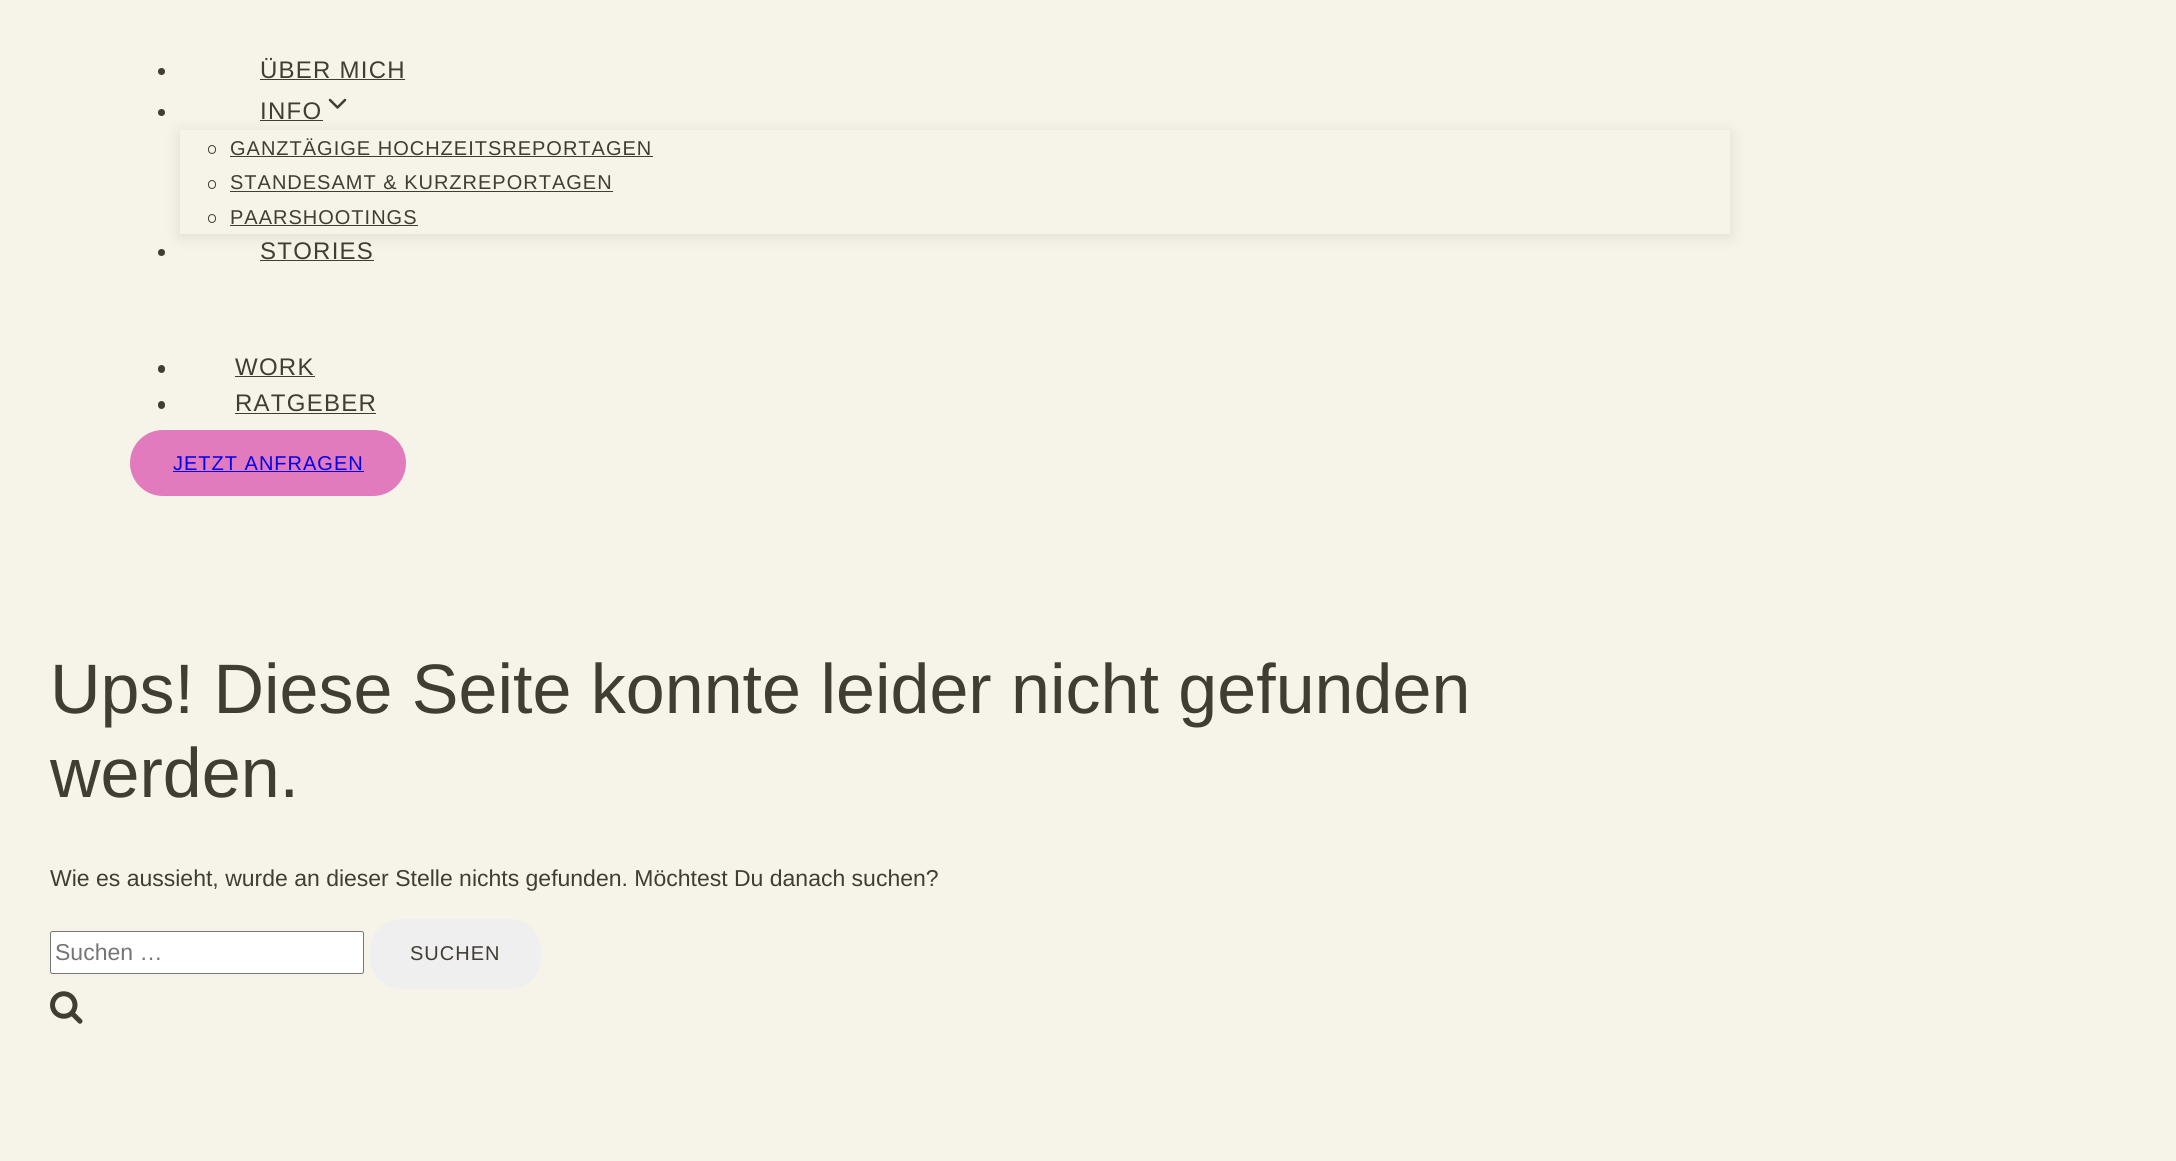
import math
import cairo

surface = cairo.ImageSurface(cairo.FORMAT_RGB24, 2176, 1161)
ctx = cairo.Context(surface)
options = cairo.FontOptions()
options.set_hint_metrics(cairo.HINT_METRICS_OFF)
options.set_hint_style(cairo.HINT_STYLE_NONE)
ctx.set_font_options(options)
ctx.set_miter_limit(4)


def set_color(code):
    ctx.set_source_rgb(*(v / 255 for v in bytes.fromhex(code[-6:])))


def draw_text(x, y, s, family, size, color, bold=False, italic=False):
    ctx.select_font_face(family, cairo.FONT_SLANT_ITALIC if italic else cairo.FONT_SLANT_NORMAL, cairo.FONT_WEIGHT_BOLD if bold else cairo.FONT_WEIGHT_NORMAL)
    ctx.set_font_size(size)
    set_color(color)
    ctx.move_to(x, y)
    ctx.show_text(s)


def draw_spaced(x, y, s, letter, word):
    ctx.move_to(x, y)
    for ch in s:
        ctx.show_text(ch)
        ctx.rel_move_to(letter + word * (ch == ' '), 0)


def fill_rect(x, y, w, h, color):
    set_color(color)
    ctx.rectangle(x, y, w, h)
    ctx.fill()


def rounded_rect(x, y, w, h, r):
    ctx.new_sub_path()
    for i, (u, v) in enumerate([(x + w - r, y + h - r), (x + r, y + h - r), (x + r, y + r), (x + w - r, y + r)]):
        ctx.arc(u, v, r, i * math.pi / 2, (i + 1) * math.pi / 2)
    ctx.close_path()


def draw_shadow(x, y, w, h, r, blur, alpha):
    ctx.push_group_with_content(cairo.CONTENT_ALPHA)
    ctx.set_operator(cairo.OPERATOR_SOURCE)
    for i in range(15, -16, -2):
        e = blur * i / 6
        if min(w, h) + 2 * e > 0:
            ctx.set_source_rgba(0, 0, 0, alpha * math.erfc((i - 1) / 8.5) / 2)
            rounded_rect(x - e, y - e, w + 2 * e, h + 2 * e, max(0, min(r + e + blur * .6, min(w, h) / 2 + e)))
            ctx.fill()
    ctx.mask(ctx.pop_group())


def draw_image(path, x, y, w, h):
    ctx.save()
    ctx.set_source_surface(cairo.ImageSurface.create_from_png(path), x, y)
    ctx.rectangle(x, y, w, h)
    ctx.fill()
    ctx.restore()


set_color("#f6f3e8")
ctx.paint()
set_color("#423d33")
ctx.arc(161.5, 71.5, 3.5, 0, 2 * math.pi)
ctx.fill()
ctx.select_font_face("Liberation Sans")
ctx.set_font_size(24)
draw_spaced(260, 78, "ÜBER MICH", 1.25, 0)
fill_rect(260, 79, 145, 1, "#423d33")
set_color("#000000")
draw_shadow(180, 133, 1550, 103, 0, 8, 0.1)
set_color("#423d33")
ctx.arc(161.5, 112.5, 3.5, 0, 2 * math.pi)
ctx.fill()
draw_spaced(260, 119, "INFO", 1.25, 0)
fill_rect(260, 120, 63, 1, "#423d33")
draw_image("assets/img1.png", 328, 98, 19, 11)
fill_rect(180, 130, 1550, 104, "#f6f3e8")
rounded_rect(208.5, 145.5, 7, 8, 3.5)
set_color("#423d33")
ctx.set_line_width(1)
ctx.stroke()
ctx.set_font_size(20)
draw_spaced(230, 155, "GANZTÄGIGE HOCHZEITSREPORTAGEN", 1, 0)
fill_rect(230, 156, 423, 1, "#423d33")
rounded_rect(208.5, 180.5, 7, 8, 3.5)
ctx.stroke()
draw_spaced(230, 189, "STANDESAMT & KURZREPORTAGEN", 1, 0)
fill_rect(230, 191, 383, 1, "#423d33")
rounded_rect(208.5, 214.5, 7, 8, 3.5)
ctx.stroke()
draw_spaced(230, 224, "PAARSHOOTINGS", 1, 0)
fill_rect(230, 225, 188, 1, "#423d33")
ctx.new_path()
ctx.arc(161.5, 252.5, 3.5, 0, 2 * math.pi)
ctx.fill()
ctx.set_font_size(24)
draw_spaced(260, 259, "STORIES", 1.25, 0)
fill_rect(260, 260, 114, 1, "#423d33")
rounded_rect(158, 365, 7, 8, 3.5)
ctx.fill()
draw_spaced(235, 375, "WORK", 1.25, 0)
fill_rect(235, 376, 80, 1, "#423d33")
rounded_rect(158, 401, 7, 8, 3.5)
ctx.fill()
draw_spaced(235, 411, "RATGEBER", 1.25, 0)
fill_rect(235, 413, 141, 1, "#423d33")
set_color("#e27abe")
rounded_rect(131.5, 431.5, 273, 63, 31.5)
ctx.fill_preserve()
ctx.set_line_width(3)
ctx.stroke()
ctx.set_font_size(20)
set_color("#0000ee")
draw_spaced(173, 470, "JETZT ANFRAGEN", 1, 0)
fill_rect(173, 471, 191, 1, "#0000ee")
draw_text(50, 713, "Ups! Diese Seite konnte leider nicht gefunden", "Liberation Sans", 70, "#423d33")
draw_text(50, 797, "werden.", "Liberation Sans", 70, "#423d33")
draw_text(50, 886, "Wie es aussieht, wurde an dieser Stelle nichts gefunden. Möchtest Du danach suchen?", "Liberation Sans", 23, "#423d33")
set_color("#ffffff")
rounded_rect(50.5, 931.5, 313, 42, 2)
ctx.fill_preserve()
set_color("#767676")
ctx.set_line_width(1)
ctx.stroke()
draw_text(55, 960, "Suchen …", "Liberation Sans", 23, "#757575")
set_color("#efefef")
rounded_rect(370, 919, 171, 70, 31)
ctx.fill()
ctx.set_font_size(20)
set_color("#423d33")
draw_spaced(410, 960, "SUCHEN", 1, 0)
draw_image("assets/img2.png", 50, 991, 33, 33)
surface.write_to_png("output.png")
